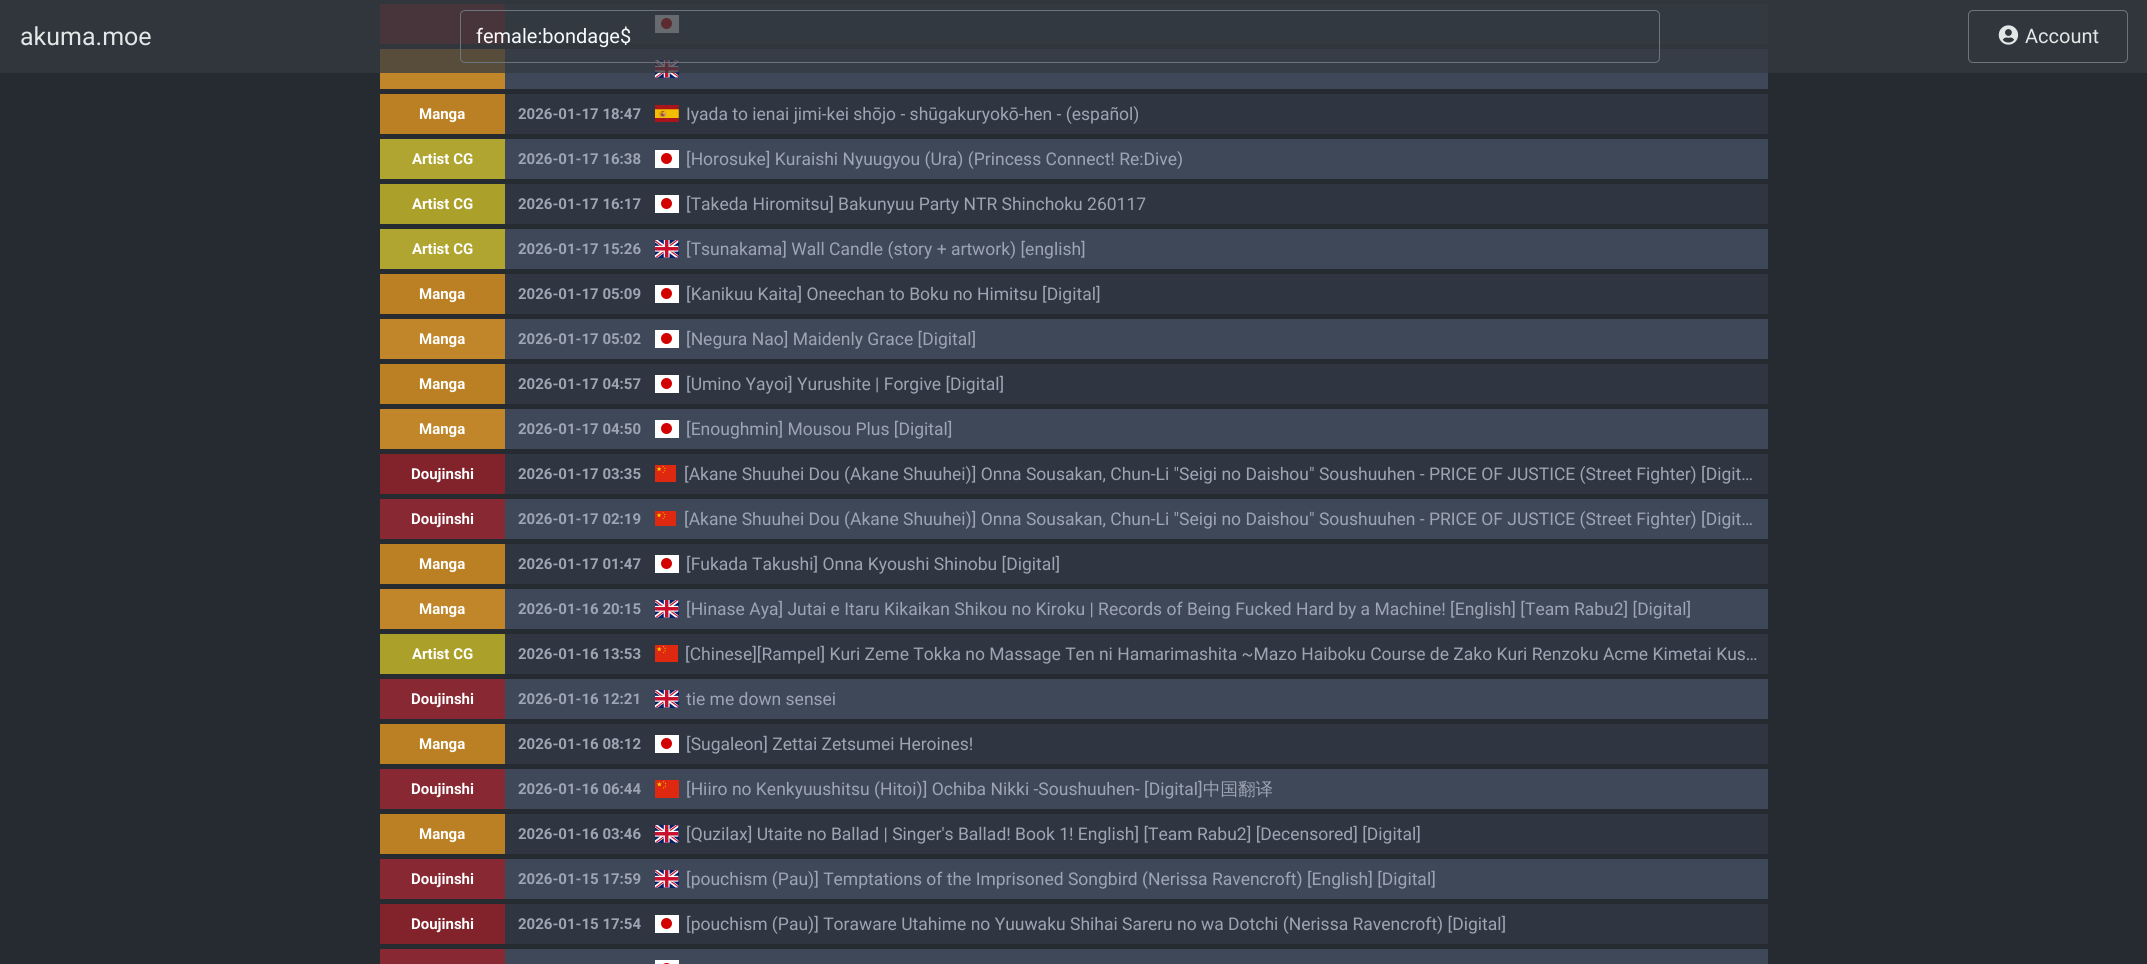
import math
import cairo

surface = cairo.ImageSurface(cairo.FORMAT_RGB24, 2147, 964)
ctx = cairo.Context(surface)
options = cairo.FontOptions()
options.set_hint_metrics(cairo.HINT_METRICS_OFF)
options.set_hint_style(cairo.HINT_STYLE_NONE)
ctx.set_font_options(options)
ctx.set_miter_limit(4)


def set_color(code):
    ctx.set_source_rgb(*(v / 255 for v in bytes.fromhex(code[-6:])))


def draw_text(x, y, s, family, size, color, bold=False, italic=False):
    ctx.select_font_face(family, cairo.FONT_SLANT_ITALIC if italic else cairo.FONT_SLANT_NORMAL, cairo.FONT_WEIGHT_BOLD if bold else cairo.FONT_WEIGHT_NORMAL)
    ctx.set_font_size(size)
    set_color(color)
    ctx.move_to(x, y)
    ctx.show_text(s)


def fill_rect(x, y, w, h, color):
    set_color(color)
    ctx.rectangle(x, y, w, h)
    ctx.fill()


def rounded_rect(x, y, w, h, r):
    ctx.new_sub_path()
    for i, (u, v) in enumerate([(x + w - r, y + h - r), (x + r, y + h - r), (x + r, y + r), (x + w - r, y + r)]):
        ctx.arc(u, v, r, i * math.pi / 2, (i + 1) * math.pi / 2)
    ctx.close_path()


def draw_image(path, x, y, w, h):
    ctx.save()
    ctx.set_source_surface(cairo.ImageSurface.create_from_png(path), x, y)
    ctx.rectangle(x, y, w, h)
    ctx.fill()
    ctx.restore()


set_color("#252b31")
ctx.paint()
fill_rect(505, 4, 1263, 40, "#2f3642")
fill_rect(380, 4, 125, 40, "#82222b")
fill_rect(655, 15, 24, 18, "#ffffff")
set_color("#d30000")
ctx.arc(666.5, 23.5, 5.5, 0, 2 * math.pi)
ctx.fill()
fill_rect(505, 49, 1263, 40, "#3f4858")
fill_rect(380, 49, 125, 40, "#c08629")
draw_image("assets/img2.png", 655, 60, 24, 18)
ctx.set_source_rgba(0.204, 0.227, 0.251, 0.75)
ctx.rectangle(0, 0, 2147, 73)
ctx.fill()
draw_text(20, 45, "akuma.moe", "Roboto", 25, "#e0e8e7")
rounded_rect(460.5, 10.5, 1199, 52, 4.5)
set_color("#6c757d")
ctx.set_line_width(1)
ctx.stroke()
draw_text(476, 43, "female:bondage$", "Roboto", 20, "#f8f9fa")
rounded_rect(1968.5, 10.5, 159, 52, 4.5)
set_color("#6c757d")
ctx.stroke()
draw_image("assets/img1.png", 1998, 25, 21, 20)
draw_text(2025, 43, "Account", "Roboto", 20, "#e0e8e7")
fill_rect(505, 94, 1263, 40, "#2f3642")
fill_rect(380, 94, 125, 40, "#bb8023")
draw_text(419, 119, "Manga", "Roboto", 15, "#ffffff", bold=True)
draw_text(518, 119, "2026-01-17 18:47", "Roboto", 15, "#9da5b3", bold=True)
draw_image("assets/img3.png", 655, 105, 24, 17)
draw_text(686, 120, "Iyada to ienai jimi-kei shōjo - shūgakuryokō-hen - (español)", "Roboto", 17.5, "#9da5b3")
fill_rect(505, 139, 1263, 40, "#3f4858")
fill_rect(380, 139, 125, 40, "#b0a531")
draw_text(412, 164, "Artist CG", "Roboto", 15, "#ffffff", bold=True)
draw_text(518, 164, "2026-01-17 16:38", "Roboto", 15, "#9da5b3", bold=True)
fill_rect(655, 150, 24, 18, "#ffffff")
set_color("#d30000")
ctx.new_path()
ctx.arc(666.5, 158.5, 5.5, 0, 2 * math.pi)
ctx.fill()
draw_text(686, 165, "[Horosuke] Kuraishi Nyuugyou (Ura) (Princess Connect! Re:Dive)", "Roboto", 17.5, "#9da5b3")
fill_rect(505, 184, 1263, 40, "#2f3642")
fill_rect(380, 184, 125, 40, "#aba02a")
draw_text(412, 209, "Artist CG", "Roboto", 15, "#ffffff", bold=True)
draw_text(518, 209, "2026-01-17 16:17", "Roboto", 15, "#9da5b3", bold=True)
fill_rect(655, 195, 24, 18, "#ffffff")
set_color("#d30000")
ctx.new_path()
ctx.arc(666.5, 203.5, 5.5, 0, 2 * math.pi)
ctx.fill()
draw_text(686, 210, "[Takeda Hiromitsu] Bakunyuu Party NTR Shinchoku 260117", "Roboto", 17.5, "#9da5b3")
fill_rect(505, 229, 1263, 40, "#3f4858")
fill_rect(380, 229, 125, 40, "#b0a531")
draw_text(412, 254, "Artist CG", "Roboto", 15, "#ffffff", bold=True)
draw_text(518, 254, "2026-01-17 15:26", "Roboto", 15, "#9da5b3", bold=True)
draw_image("assets/img2.png", 655, 240, 24, 18)
draw_text(686, 255, "[Tsunakama] Wall Candle (story + artwork) [english]", "Roboto", 17.5, "#9da5b3")
fill_rect(505, 274, 1263, 40, "#2f3642")
fill_rect(380, 274, 125, 40, "#bb8023")
draw_text(419, 299, "Manga", "Roboto", 15, "#ffffff", bold=True)
draw_text(518, 299, "2026-01-17 05:09", "Roboto", 15, "#9da5b3", bold=True)
fill_rect(655, 285, 24, 18, "#ffffff")
set_color("#d30000")
ctx.new_path()
ctx.arc(666.5, 293.5, 5.5, 0, 2 * math.pi)
ctx.fill()
draw_text(686, 300, "[Kanikuu Kaita] Oneechan to Boku no Himitsu [Digital]", "Roboto", 17.5, "#9da5b3")
fill_rect(505, 319, 1263, 40, "#3f4858")
fill_rect(380, 319, 125, 40, "#c08629")
draw_text(419, 344, "Manga", "Roboto", 15, "#ffffff", bold=True)
draw_text(518, 344, "2026-01-17 05:02", "Roboto", 15, "#9da5b3", bold=True)
fill_rect(655, 330, 24, 18, "#ffffff")
set_color("#d30000")
ctx.new_path()
ctx.arc(666.5, 338.5, 5.5, 0, 2 * math.pi)
ctx.fill()
draw_text(686, 345, "[Negura Nao] Maidenly Grace [Digital]", "Roboto", 17.5, "#9da5b3")
fill_rect(505, 364, 1263, 40, "#2f3642")
fill_rect(380, 364, 125, 40, "#bb8023")
draw_text(419, 389, "Manga", "Roboto", 15, "#ffffff", bold=True)
draw_text(518, 389, "2026-01-17 04:57", "Roboto", 15, "#9da5b3", bold=True)
fill_rect(655, 375, 24, 18, "#ffffff")
set_color("#d30000")
ctx.new_path()
ctx.arc(666.5, 383.5, 5.5, 0, 2 * math.pi)
ctx.fill()
draw_text(686, 390, "[Umino Yayoi] Yurushite | Forgive [Digital]", "Roboto", 17.5, "#9da5b3")
fill_rect(505, 409, 1263, 40, "#3f4858")
fill_rect(380, 409, 125, 40, "#c08629")
draw_text(419, 434, "Manga", "Roboto", 15, "#ffffff", bold=True)
draw_text(518, 434, "2026-01-17 04:50", "Roboto", 15, "#9da5b3", bold=True)
fill_rect(655, 420, 24, 18, "#ffffff")
set_color("#d30000")
ctx.new_path()
ctx.arc(666.5, 428.5, 5.5, 0, 2 * math.pi)
ctx.fill()
draw_text(686, 435, "[Enoughmin] Mousou Plus [Digital]", "Roboto", 17.5, "#9da5b3")
fill_rect(505, 454, 1263, 40, "#2f3642")
fill_rect(380, 454, 125, 40, "#82222b")
draw_text(411, 479, "Doujinshi", "Roboto", 15, "#ffffff", bold=True)
draw_text(518, 479, "2026-01-17 03:35", "Roboto", 15, "#9da5b3", bold=True)
draw_image("assets/img4.png", 655, 465, 21, 17)
draw_text(684, 480, "[Akane Shuuhei Dou (Akane Shuuhei)] Onna Sousakan, Chun-Li \"Seigi no Daishou\" Soushuuhen - PRICE OF JUSTICE (Street Fighter) [Digit…", "Roboto", 17.5, "#9da5b3")
fill_rect(505, 499, 1263, 40, "#3f4858")
fill_rect(380, 499, 125, 40, "#872832")
draw_text(411, 524, "Doujinshi", "Roboto", 15, "#ffffff", bold=True)
draw_text(518, 524, "2026-01-17 02:19", "Roboto", 15, "#9da5b3", bold=True)
draw_image("assets/img5.png", 655, 511, 21, 15)
draw_text(684, 525, "[Akane Shuuhei Dou (Akane Shuuhei)] Onna Sousakan, Chun-Li \"Seigi no Daishou\" Soushuuhen - PRICE OF JUSTICE (Street Fighter) [Digit…", "Roboto", 17.5, "#9da5b3")
fill_rect(505, 544, 1263, 40, "#2f3642")
fill_rect(380, 544, 125, 40, "#bb8023")
draw_text(419, 569, "Manga", "Roboto", 15, "#ffffff", bold=True)
draw_text(518, 569, "2026-01-17 01:47", "Roboto", 15, "#9da5b3", bold=True)
fill_rect(655, 555, 24, 18, "#ffffff")
set_color("#d30000")
ctx.new_path()
ctx.arc(666.5, 563.5, 5.5, 0, 2 * math.pi)
ctx.fill()
draw_text(686, 570, "[Fukada Takushi] Onna Kyoushi Shinobu [Digital]", "Roboto", 17.5, "#9da5b3")
fill_rect(505, 589, 1263, 40, "#3f4858")
fill_rect(380, 589, 125, 40, "#c08629")
draw_text(419, 614, "Manga", "Roboto", 15, "#ffffff", bold=True)
draw_text(518, 614, "2026-01-16 20:15", "Roboto", 15, "#9da5b3", bold=True)
draw_image("assets/img2.png", 655, 600, 24, 18)
draw_text(686, 615, "[Hinase Aya] Jutai e Itaru Kikaikan Shikou no Kiroku | Records of Being Fucked Hard by a Machine! [English] [Team Rabu2] [Digital]", "Roboto", 17.5, "#9da5b3")
fill_rect(505, 634, 1263, 40, "#2f3642")
fill_rect(380, 634, 125, 40, "#aba02a")
draw_text(412, 659, "Artist CG", "Roboto", 15, "#ffffff", bold=True)
draw_text(518, 659, "2026-01-16 13:53", "Roboto", 15, "#9da5b3", bold=True)
draw_image("assets/img6.png", 655, 645, 23, 17)
draw_text(685, 660, "[Chinese][Rampel] Kuri Zeme Tokka no Massage Ten ni Hamarimashita ~Mazo Haiboku Course de Zako Kuri Renzoku Acme Kimetai Kus…", "Roboto", 17.5, "#9da5b3")
fill_rect(505, 679, 1263, 40, "#3f4858")
fill_rect(380, 679, 125, 40, "#872832")
draw_text(411, 704, "Doujinshi", "Roboto", 15, "#ffffff", bold=True)
draw_text(518, 704, "2026-01-16 12:21", "Roboto", 15, "#9da5b3", bold=True)
draw_image("assets/img2.png", 655, 690, 24, 18)
draw_text(686, 705, "tie me down sensei", "Roboto", 17.5, "#9da5b3")
fill_rect(505, 724, 1263, 40, "#2f3642")
fill_rect(380, 724, 125, 40, "#bb8023")
draw_text(419, 749, "Manga", "Roboto", 15, "#ffffff", bold=True)
draw_text(518, 749, "2026-01-16 08:12", "Roboto", 15, "#9da5b3", bold=True)
fill_rect(655, 735, 24, 18, "#ffffff")
set_color("#d30000")
ctx.new_path()
ctx.arc(666.5, 743.5, 5.5, 0, 2 * math.pi)
ctx.fill()
draw_text(686, 750, "[Sugaleon] Zettai Zetsumei Heroines!", "Roboto", 17.5, "#9da5b3")
fill_rect(505, 769, 1263, 40, "#3f4858")
fill_rect(380, 769, 125, 40, "#872832")
draw_text(411, 794, "Doujinshi", "Roboto", 15, "#ffffff", bold=True)
draw_text(518, 794, "2026-01-16 06:44", "Roboto", 15, "#9da5b3", bold=True)
draw_image("assets/img7.png", 655, 780, 24, 18)
draw_text(686, 795, "[Hiiro no Kenkyuushitsu (Hitoi)] Ochiba Nikki -Soushuuhen- [Digital]", "Roboto", 17.5, "#9da5b3")
draw_text(1203, 795, "中国翻译", "WenQuanYi Zen Hei Medium", 17.5, "#9da5b3")
fill_rect(505, 814, 1263, 40, "#2f3642")
fill_rect(380, 814, 125, 40, "#bb8023")
draw_text(419, 839, "Manga", "Roboto", 15, "#ffffff", bold=True)
draw_text(518, 839, "2026-01-16 03:46", "Roboto", 15, "#9da5b3", bold=True)
draw_image("assets/img2.png", 655, 825, 24, 18)
draw_text(686, 840, "[Quzilax] Utaite no Ballad | Singer's Ballad! Book 1! English] [Team Rabu2] [Decensored] [Digital]", "Roboto", 17.5, "#9da5b3")
fill_rect(505, 859, 1263, 40, "#3f4858")
fill_rect(380, 859, 125, 40, "#872832")
draw_text(411, 884, "Doujinshi", "Roboto", 15, "#ffffff", bold=True)
draw_text(518, 884, "2026-01-15 17:59", "Roboto", 15, "#9da5b3", bold=True)
draw_image("assets/img2.png", 655, 870, 24, 18)
draw_text(686, 885, "[pouchism (Pau)] Temptations of the Imprisoned Songbird (Nerissa Ravencroft) [English] [Digital]", "Roboto", 17.5, "#9da5b3")
fill_rect(505, 904, 1263, 40, "#2f3642")
fill_rect(380, 904, 125, 40, "#82222b")
draw_text(411, 929, "Doujinshi", "Roboto", 15, "#ffffff", bold=True)
draw_text(518, 929, "2026-01-15 17:54", "Roboto", 15, "#9da5b3", bold=True)
fill_rect(655, 915, 24, 18, "#ffffff")
set_color("#d30000")
ctx.new_path()
ctx.arc(666.5, 923.5, 5.5, 0, 2 * math.pi)
ctx.fill()
draw_text(686, 930, "[pouchism (Pau)] Toraware Utahime no Yuuwaku Shihai Sareru no wa Dotchi (Nerissa Ravencroft) [Digital]", "Roboto", 17.5, "#9da5b3")
fill_rect(505, 949, 1263, 15, "#3f4858")
fill_rect(380, 949, 125, 15, "#872832")
fill_rect(655, 960, 24, 4, "#ffffff")
set_color("#d30000")
ctx.new_path()
ctx.arc(666.5, 968.5, 5.5, 0, 2 * math.pi)
ctx.fill()
surface.write_to_png("output.png")
